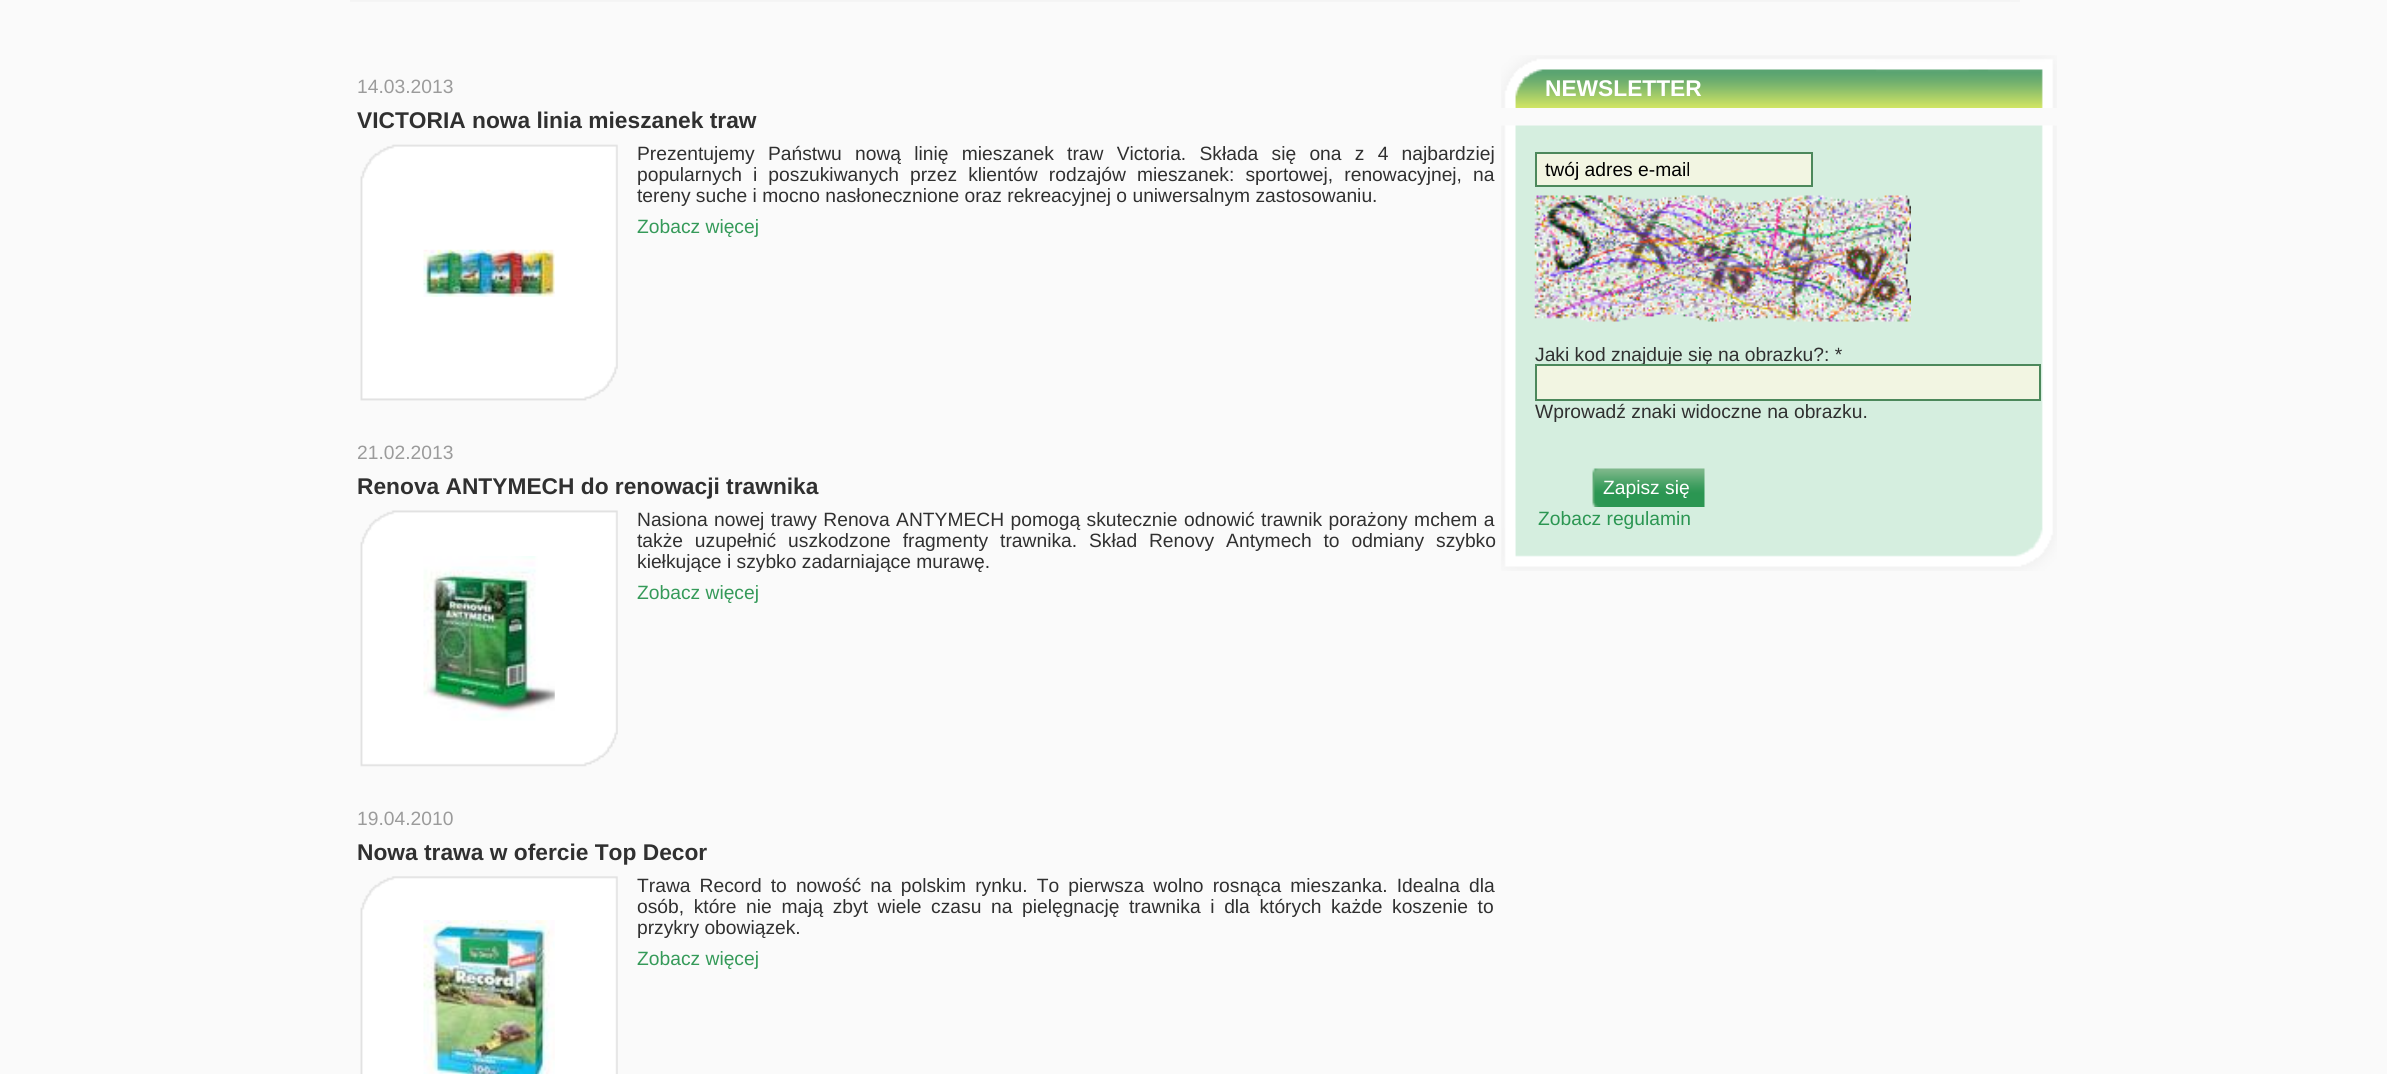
import math
import cairo

surface = cairo.ImageSurface(cairo.FORMAT_RGB24, 2387, 1074)
ctx = cairo.Context(surface)
options = cairo.FontOptions()
options.set_hint_metrics(cairo.HINT_METRICS_OFF)
options.set_hint_style(cairo.HINT_STYLE_NONE)
ctx.set_font_options(options)
ctx.set_miter_limit(4)


def set_color(code):
    ctx.set_source_rgb(*(v / 255 for v in bytes.fromhex(code[-6:])))


def draw_text(x, y, s, family, size, color, bold=False, italic=False):
    ctx.select_font_face(family, cairo.FONT_SLANT_ITALIC if italic else cairo.FONT_SLANT_NORMAL, cairo.FONT_WEIGHT_BOLD if bold else cairo.FONT_WEIGHT_NORMAL)
    ctx.set_font_size(size)
    set_color(color)
    ctx.move_to(x, y)
    ctx.show_text(s)


def draw_spaced(x, y, s, letter, word):
    ctx.move_to(x, y)
    for ch in s:
        ctx.show_text(ch)
        ctx.rel_move_to(letter + word * (ch == ' '), 0)


def fill_rect(x, y, w, h, color):
    set_color(color)
    ctx.rectangle(x, y, w, h)
    ctx.fill()


def draw_image(path, x, y, w, h):
    ctx.save()
    ctx.set_source_surface(cairo.ImageSurface.create_from_png(path), x, y)
    ctx.rectangle(x, y, w, h)
    ctx.fill()
    ctx.restore()


set_color("#fafafa")
ctx.paint()
draw_image("assets/img1.png", 350, 0, 1661, 2)
fill_rect(2011, 0, 9, 2, "#f5f5f5")
draw_text(357, 93, "14.03.2013", "Liberation Sans", 19.25, "#9b9b9b")
draw_text(357, 128, "VICTORIA nowa linia mieszanek traw", "Liberation Sans", 22.75, "#303030", bold=True)
draw_image("assets/img2.png", 360, 144, 258, 257)
draw_image("assets/img3.png", 423, 249, 132, 48)
ctx.select_font_face("Liberation Sans")
ctx.set_font_size(19.25)
draw_spaced(637, 160, "Prezentujemy Państwu nową linię mieszanek traw Victoria. Składa się ona z 4 najbardziej", 0, 7.9)
draw_spaced(637, 181, "popularnych i poszukiwanych przez klientów rodzajów mieszanek: sportowej, renowacyjnej, na", 0, 5.75)
draw_text(637, 202, "tereny suche i mocno nasłonecznione oraz rekreacyjnej o uniwersalnym zastosowaniu.", "Liberation Sans", 19.25, "#303030")
draw_text(637, 233, "Zobacz więcej", "Liberation Sans", 19.25, "#359a59")
draw_text(357, 459, "21.02.2013", "Liberation Sans", 19.25, "#9b9b9b")
draw_text(357, 494, "Renova ANTYMECH do renowacji trawnika", "Liberation Sans", 22.75, "#303030", bold=True)
draw_image("assets/img4.png", 360, 510, 258, 257)
draw_image("assets/img5.png", 423, 556, 132, 165)
ctx.select_font_face("Liberation Sans")
ctx.set_font_size(19.25)
draw_spaced(637, 526, "Nasiona nowej trawy Renova ANTYMECH pomogą skutecznie odnowić trawnik porażony mchem a", 0, 1.1)
draw_spaced(637, 547, "także uzupełnić uszkodzone fragmenty trawnika. Skład Renovy Antymech to odmiany szybko", 0, 6.5)
draw_text(637, 568, "kiełkujące i szybko zadarniające murawę.", "Liberation Sans", 19.25, "#303030")
draw_text(637, 599, "Zobacz więcej", "Liberation Sans", 19.25, "#359a59")
draw_text(357, 825, "19.04.2010", "Liberation Sans", 19.25, "#9b9b9b")
draw_text(357, 860, "Nowa trawa w ofercie Top Decor", "Liberation Sans", 22.75, "#303030", bold=True)
draw_image("assets/img6.png", 360, 876, 258, 198)
draw_image("assets/img7.png", 423, 920, 132, 154)
ctx.select_font_face("Liberation Sans")
ctx.set_font_size(19.25)
draw_spaced(637, 892, "Trawa Record to nowość na polskim rynku. To pierwsza wolno rosnąca mieszanka. Idealna dla", 0, 3.75)
draw_spaced(637, 913, "osób, które nie mają zbyt wiele czasu na pielęgnację trawnika i dla których każde koszenie to", 0, 4.25)
draw_text(637, 934, "przykry obowiązek.", "Liberation Sans", 19.25, "#303030")
draw_text(637, 965, "Zobacz więcej", "Liberation Sans", 19.25, "#359a59")
draw_image("assets/img8.png", 1501, 55, 556, 53)
draw_text(1545, 96, "NEWSLETTER", "Liberation Sans", 22.75, "#ffffff", bold=True)
draw_image("assets/img9.png", 1501, 125, 556, 403)
set_color("#f2f5e2")
ctx.rectangle(1536, 153, 276, 33)
ctx.fill_preserve()
set_color("#4c885b")
ctx.stroke()
draw_text(1545, 176, "twój adres e-mail", "Liberation Sans", 19.25, "#000000")
draw_image("assets/img10.png", 1534, 195, 377, 127)
draw_text(1535, 361, "Jaki kod znajduje się na obrazku?: *", "Liberation Sans", 19.25, "#303030")
set_color("#f2f5e2")
ctx.rectangle(1536, 365, 504, 35)
ctx.fill_preserve()
set_color("#4c885b")
ctx.stroke()
draw_text(1535, 418, "Wprowadź znaki widoczne na obrazku.", "Liberation Sans", 19.25, "#303030")
draw_image("assets/img11.png", 1592, 468, 113, 39)
draw_text(1603, 494, "Zapisz się", "Liberation Sans", 19.25, "#ffffff")
draw_image("assets/img12.png", 1501, 528, 556, 43)
draw_text(1538, 525, "Zobacz regulamin", "Liberation Sans", 19.25, "#2b9652")
surface.write_to_png("output.png")
